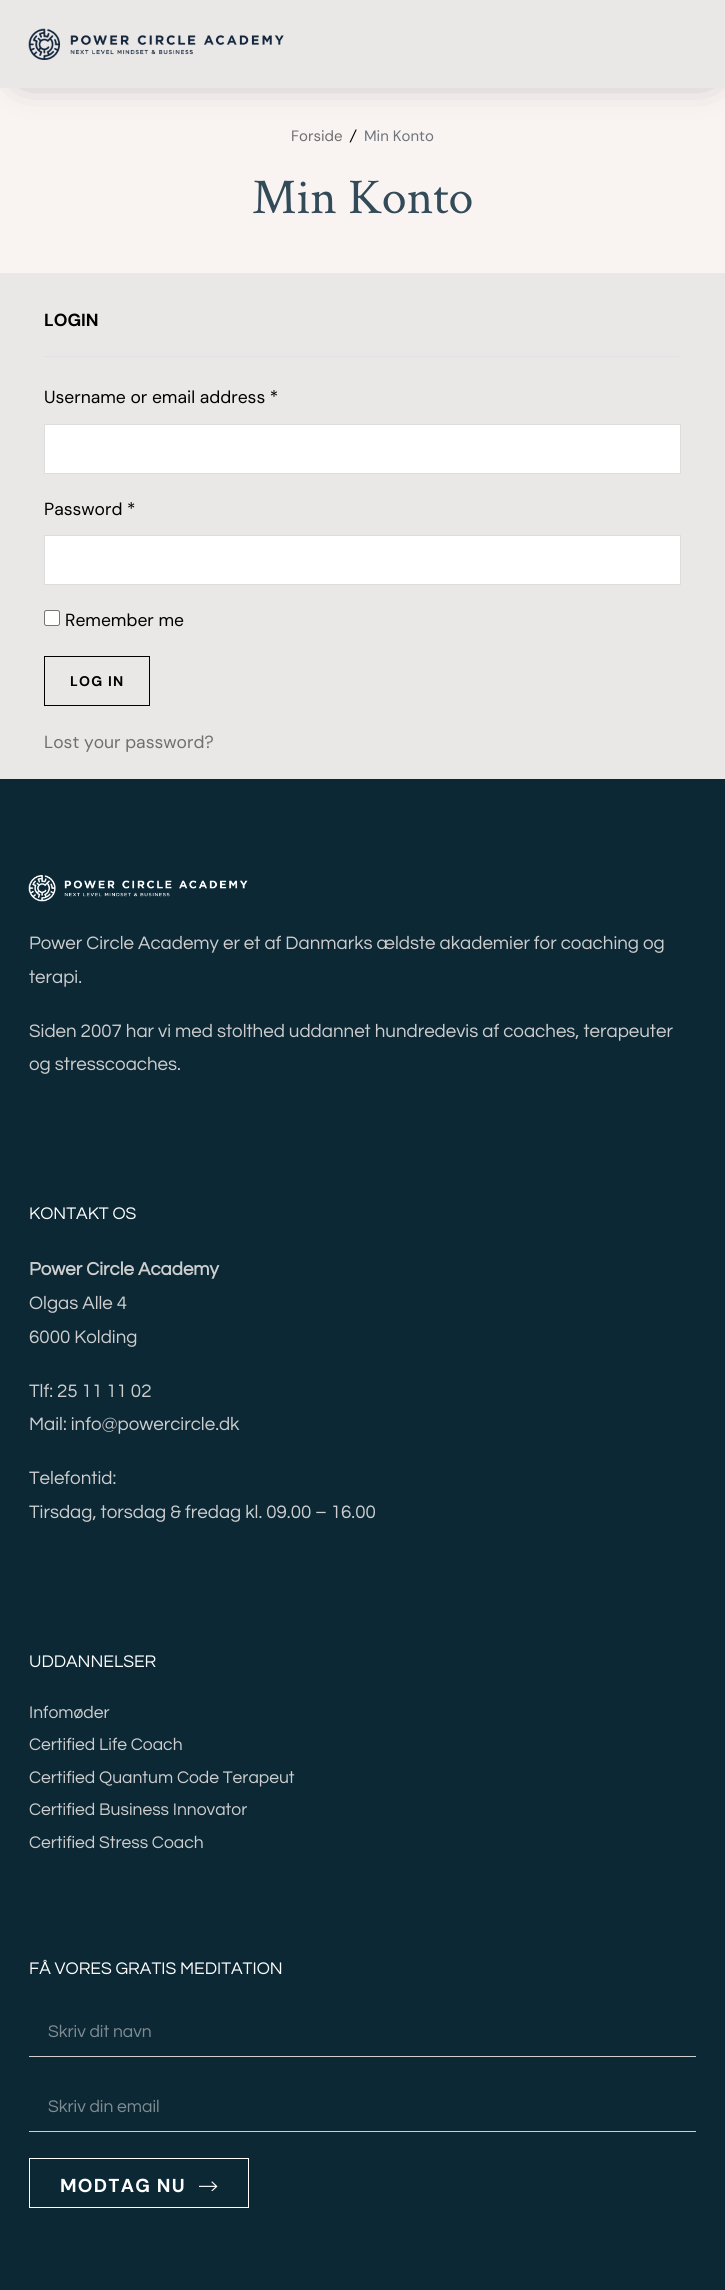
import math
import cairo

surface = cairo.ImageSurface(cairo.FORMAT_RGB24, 725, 2290)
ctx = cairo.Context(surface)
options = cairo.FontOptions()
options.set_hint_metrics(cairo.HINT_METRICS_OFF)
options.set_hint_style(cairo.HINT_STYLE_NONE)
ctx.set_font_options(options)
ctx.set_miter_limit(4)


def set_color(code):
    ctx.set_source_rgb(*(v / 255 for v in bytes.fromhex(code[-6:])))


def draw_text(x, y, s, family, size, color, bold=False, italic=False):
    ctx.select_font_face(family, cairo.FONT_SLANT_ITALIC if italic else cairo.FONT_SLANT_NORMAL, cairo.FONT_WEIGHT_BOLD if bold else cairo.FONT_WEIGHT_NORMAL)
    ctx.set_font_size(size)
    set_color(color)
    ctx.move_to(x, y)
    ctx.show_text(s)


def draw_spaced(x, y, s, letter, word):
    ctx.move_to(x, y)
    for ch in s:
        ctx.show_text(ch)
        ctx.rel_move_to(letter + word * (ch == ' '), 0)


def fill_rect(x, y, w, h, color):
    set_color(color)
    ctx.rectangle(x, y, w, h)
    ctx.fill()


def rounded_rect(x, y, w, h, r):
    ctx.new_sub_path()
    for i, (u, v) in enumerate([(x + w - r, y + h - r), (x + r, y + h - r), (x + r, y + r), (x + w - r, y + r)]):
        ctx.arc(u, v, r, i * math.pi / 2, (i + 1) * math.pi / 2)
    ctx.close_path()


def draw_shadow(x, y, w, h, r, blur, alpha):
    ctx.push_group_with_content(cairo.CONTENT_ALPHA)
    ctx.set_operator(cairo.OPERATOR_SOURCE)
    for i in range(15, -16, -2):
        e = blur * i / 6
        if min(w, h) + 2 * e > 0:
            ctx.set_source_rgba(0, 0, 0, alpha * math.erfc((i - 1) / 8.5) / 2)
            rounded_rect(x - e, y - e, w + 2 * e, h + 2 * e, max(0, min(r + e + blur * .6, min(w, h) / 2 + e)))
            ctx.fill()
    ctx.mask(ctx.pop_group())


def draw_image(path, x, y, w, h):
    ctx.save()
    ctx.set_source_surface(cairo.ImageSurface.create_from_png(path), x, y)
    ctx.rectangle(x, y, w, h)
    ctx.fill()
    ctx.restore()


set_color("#e9e8e6")
ctx.paint()
fill_rect(0, 88, 725, 185, "#f9f3f2")
set_color("#000000")
draw_shadow(25, 25, 683, 45, 0, 20, 0.5)
fill_rect(0, 0, 725, 88, "#e9e8e6")
draw_image("assets/img1.png", 28, 28, 256, 32)
draw_text(291, 141, "Forside", "DM Sans", 15, "#6e6f70")
draw_text(350, 141, "/", "DM Sans", 15, "#000000", italic=True)
draw_text(364, 141, "Min Konto", "DM Sans", 15, "#6c757d")
draw_text(252, 213, "Min Konto", "Crimson Text", 50, "#334a59")
fill_rect(44, 356, 637, 1, "#dee2e6")
draw_text(44, 326, "LOGIN", "DM Sans", 17.5, "#000000", bold=True)
draw_text(44, 403, "Username or email address *", "DM Sans", 17.5, "#000000")
set_color("#ffffff")
ctx.rectangle(44.5, 424.5, 636, 49)
ctx.fill_preserve()
set_color("#dddddd")
ctx.set_line_width(1)
ctx.stroke()
draw_text(44, 515, "Password *", "DM Sans", 17.5, "#000000")
set_color("#ffffff")
ctx.rectangle(44.5, 535.5, 636, 49)
ctx.fill_preserve()
set_color("#dddddd")
ctx.stroke()
set_color("#ffffff")
rounded_rect(44.5, 610.5, 15, 15, 2)
ctx.fill_preserve()
set_color("#767676")
ctx.stroke()
draw_text(65, 626, "Remember me", "DM Sans", 17.5, "#000000")
ctx.rectangle(44.5, 656.5, 105, 49)
ctx.stroke()
ctx.select_font_face("DM Sans", cairo.FONT_SLANT_NORMAL, cairo.FONT_WEIGHT_BOLD)
ctx.set_font_size(14)
draw_spaced(70, 686, "LOG IN", 1.25, 0)
draw_text(44, 748, "Lost your password?", "DM Sans", 17.5, "#6e6f70")
fill_rect(0, 779, 725, 1511, "#0c2835")
draw_image("assets/img2.png", 28, 875, 220, 27)
draw_text(29, 949, "Power Circle Academy er et af Danmarks ældste akademier for coaching og", "Questrial", 18.75, "#cecece")
draw_text(29, 983, "terapi.", "Questrial", 18.75, "#cecece")
draw_text(29, 1037, "Siden 2007 har vi med stolthed uddannet hundredevis af coaches, terapeuter", "Questrial", 18.75, "#cecece")
draw_text(29, 1070, "og stresscoaches.", "Questrial", 18.75, "#cecece")
draw_text(29, 1219, "KONTAKT OS", "Questrial", 17.5, "#ffffff")
draw_text(29, 1275, "Power Circle Academy", "Questrial", 18.75, "#cecece", bold=True)
draw_text(29, 1309, "Olgas Alle 4", "Questrial", 18.75, "#cecece")
draw_text(29, 1343, "6000 Kolding", "Questrial", 18.75, "#cecece")
draw_text(29, 1397, "Tlf: 25 11 11 02", "Questrial", 18.75, "#cecece")
draw_text(29, 1430, "Mail: info@powercircle.dk", "Questrial", 18.75, "#cecece")
draw_text(29, 1484, "Telefontid:", "Questrial", 18.75, "#cecece")
draw_text(29, 1518, "Tirsdag, torsdag & fredag kl. 09.00 – 16.00", "Questrial", 18.75, "#cecece")
draw_text(29, 1667, "UDDANNELSER", "Questrial", 17.5, "#ffffff")
draw_text(29, 1718, "Infomøder", "Questrial", 17.5, "#cecece")
draw_text(29, 1750, "Certified Life Coach", "Questrial", 17.5, "#cecece")
draw_text(29, 1783, "Certified Quantum Code Terapeut", "Questrial", 17.5, "#cecece")
draw_text(29, 1815, "Certified Business Innovator", "Questrial", 17.5, "#cecece")
draw_text(29, 1848, "Certified Stress Coach", "Questrial", 17.5, "#cecece")
draw_text(29, 1974, "FÅ VORES GRATIS MEDITATION", "Questrial", 17.5, "#ffffff")
fill_rect(29, 2056, 667, 1, "#cecece")
draw_text(48, 2037, "Skriv dit navn", "Questrial", 17.5, "#808c91")
fill_rect(29, 2131, 667, 1, "#cecece")
draw_text(48, 2112, "Skriv din email", "Questrial", 17.5, "#808c91")
ctx.rectangle(29.5, 2158.5, 219, 49)
set_color("#ffffff")
ctx.stroke()
ctx.select_font_face("DM Sans", cairo.FONT_SLANT_NORMAL, cairo.FONT_WEIGHT_BOLD)
ctx.set_font_size(18.75)
draw_spaced(60, 2192, "MODTAG NU", 1.25, 0)
draw_image("assets/img3.png", 199, 2181, 19, 10)
surface.write_to_png("output.png")
